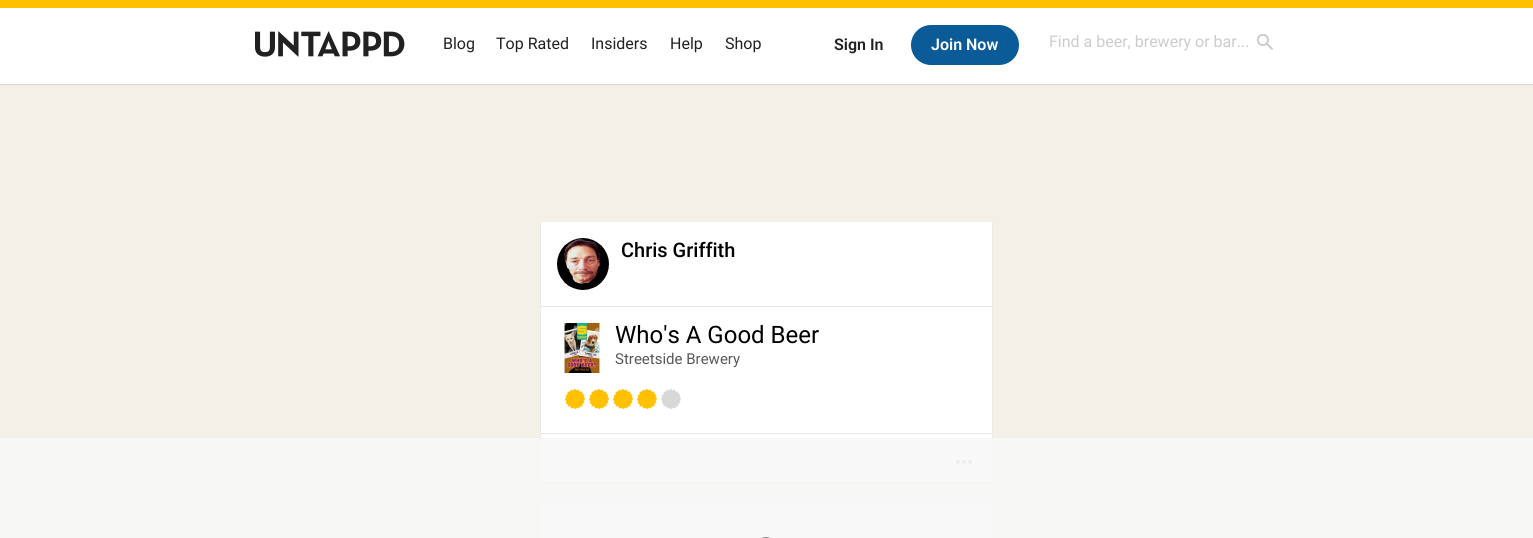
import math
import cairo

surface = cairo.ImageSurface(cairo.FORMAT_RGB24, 1533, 538)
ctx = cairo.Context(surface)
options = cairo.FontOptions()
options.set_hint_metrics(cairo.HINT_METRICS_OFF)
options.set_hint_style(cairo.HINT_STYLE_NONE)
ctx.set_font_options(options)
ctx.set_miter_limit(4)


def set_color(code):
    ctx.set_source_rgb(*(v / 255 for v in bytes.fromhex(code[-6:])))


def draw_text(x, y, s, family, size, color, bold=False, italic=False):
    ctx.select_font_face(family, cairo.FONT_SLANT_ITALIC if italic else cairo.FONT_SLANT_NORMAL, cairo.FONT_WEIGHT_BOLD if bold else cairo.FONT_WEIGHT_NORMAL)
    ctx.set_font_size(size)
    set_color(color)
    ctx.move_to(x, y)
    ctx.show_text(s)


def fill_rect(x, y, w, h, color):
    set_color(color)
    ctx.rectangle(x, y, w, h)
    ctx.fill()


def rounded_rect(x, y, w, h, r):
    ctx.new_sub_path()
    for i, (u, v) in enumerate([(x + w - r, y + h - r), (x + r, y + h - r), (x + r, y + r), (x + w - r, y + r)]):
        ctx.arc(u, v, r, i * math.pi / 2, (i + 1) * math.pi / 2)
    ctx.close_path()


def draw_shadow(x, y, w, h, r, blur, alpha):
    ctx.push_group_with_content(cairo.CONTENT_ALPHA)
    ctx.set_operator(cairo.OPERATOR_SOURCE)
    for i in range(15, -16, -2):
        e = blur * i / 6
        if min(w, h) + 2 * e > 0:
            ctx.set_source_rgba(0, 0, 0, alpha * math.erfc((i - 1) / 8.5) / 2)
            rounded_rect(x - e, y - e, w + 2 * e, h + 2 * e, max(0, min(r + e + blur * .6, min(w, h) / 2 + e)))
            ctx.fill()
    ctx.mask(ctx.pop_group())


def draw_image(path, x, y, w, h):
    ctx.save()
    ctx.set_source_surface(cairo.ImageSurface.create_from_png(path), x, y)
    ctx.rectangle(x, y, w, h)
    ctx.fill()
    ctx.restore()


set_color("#f3f0e8")
ctx.paint()
set_color("#000000")
draw_shadow(0, 1, 1533, 84, 0, 0.5, 0.1)
fill_rect(0, 8, 1533, 76, "#ffffff")
fill_rect(0, 0, 1533, 8, "#ffc000")
draw_image("assets/img1.png", 255, 31, 150, 26)
draw_text(443, 49, "Blog", "Roboto", 16, "#212121")
draw_text(496, 49, "Top Rated", "Roboto", 16, "#212121")
draw_text(591, 49, "Insiders", "Roboto", 16, "#212121")
draw_text(670, 49, "Help", "Roboto", 16, "#212121")
draw_text(725, 49, "Shop", "Roboto", 16, "#212121")
draw_image("assets/img3.png", 1257, 34, 16, 16)
draw_image("assets/img2.png", 1257, 34, 16, 16)
draw_text(1049, 47, "Find a beer, brewery or bar...", "Roboto", 16, "#cccccc")
draw_text(834, 50, "Sign In", "Roboto SemiBold", 16, "#212121")
set_color("#0b5b99")
rounded_rect(911, 25, 108, 40, 20)
ctx.fill()
draw_text(931, 50, "Join Now", "Roboto SemiBold", 16, "#ffffff")
set_color("#000000")
draw_shadow(541, 223, 451, 260, 0, 0.5, 0.1)
fill_rect(541, 222, 451, 260, "#ffffff")
fill_rect(541, 306, 451, 1, "#e6e6e6")
draw_image("assets/img4.png", 557, 238, 52, 52)
draw_text(621, 257, "Chris Griffith", "Roboto Medium", 20, "#000000")
fill_rect(541, 433, 451, 1, "#e6e6e6")
draw_image("assets/img5.png", 563, 323, 38, 50)
draw_text(615, 343, "Who's A Good Beer", "Roboto", 24, "#000000")
draw_text(615, 364, "Streetside Brewery", "Roboto", 15, "#595959")
draw_image("assets/img6.png", 565, 389, 20, 20)
draw_image("assets/img6.png", 589, 389, 20, 20)
draw_image("assets/img6.png", 613, 389, 20, 20)
draw_image("assets/img7.png", 637, 389, 20, 20)
draw_image("assets/img8.png", 661, 389, 20, 20)
draw_image("assets/img9.png", 956, 460, 16, 4)
fill_rect(541, 498, 451, 40, "#ffffff")
ctx.set_source_rgba(0.969, 0.969, 0.969, 0.9)
ctx.rectangle(0, 438, 1533, 100)
ctx.fill()
rounded_rect(755.5, 537.5, 21, 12, 10.5)
set_color("#888888")
ctx.set_line_width(1)
ctx.stroke()
surface.write_to_png("output.png")
